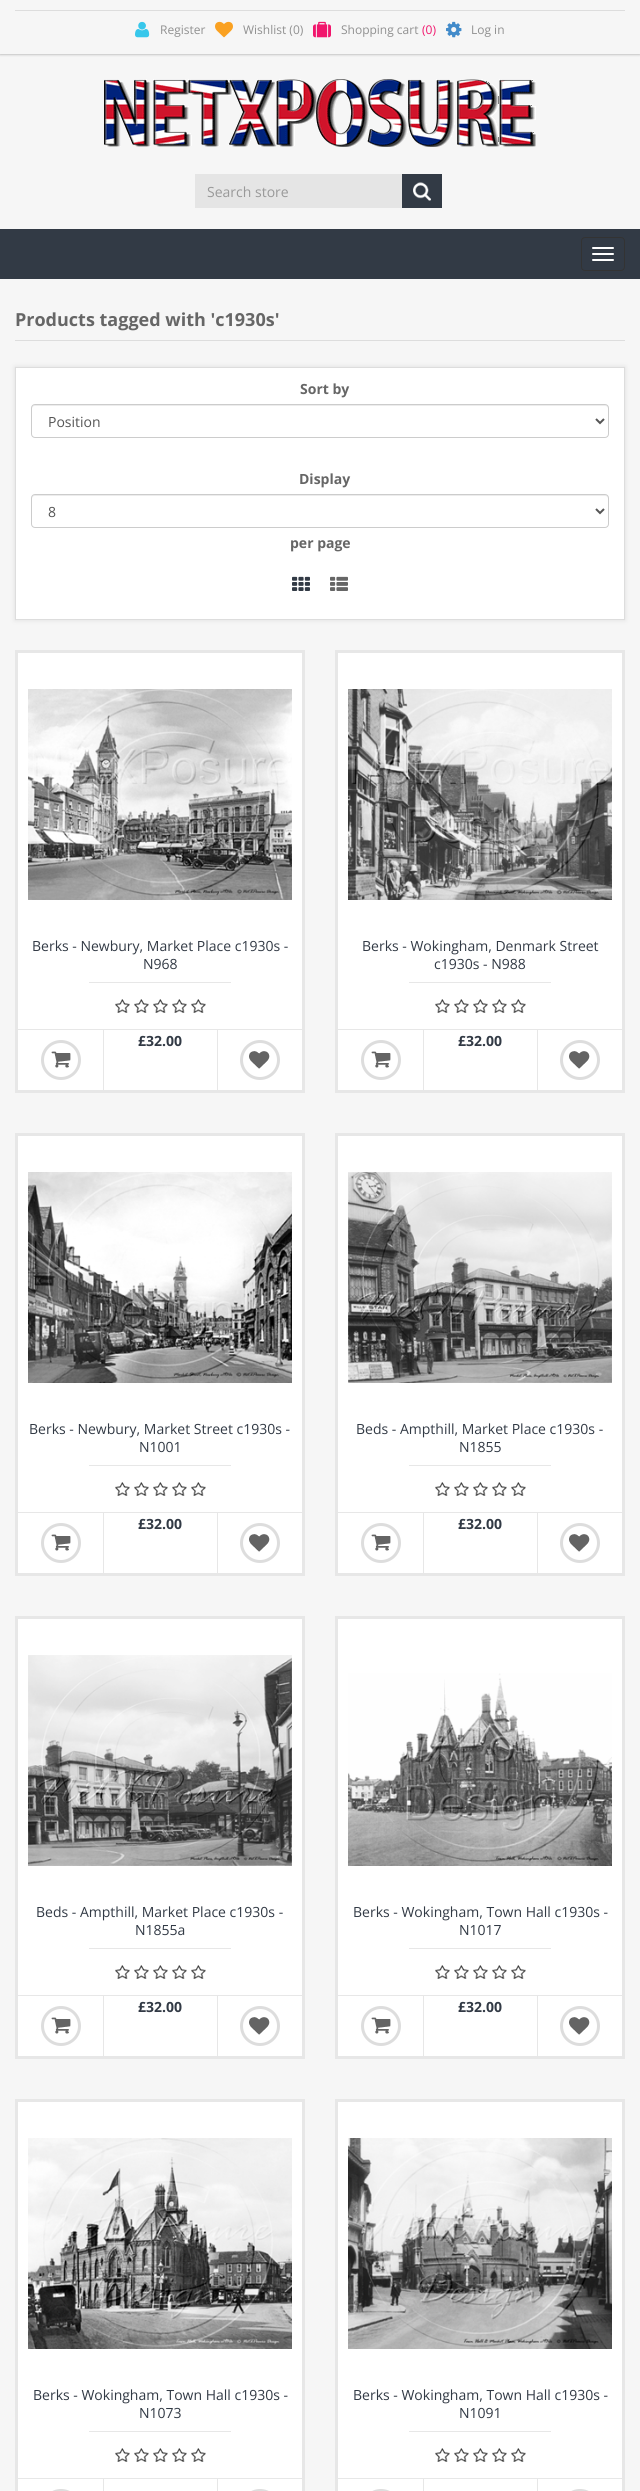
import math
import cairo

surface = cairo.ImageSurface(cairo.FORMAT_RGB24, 640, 2491)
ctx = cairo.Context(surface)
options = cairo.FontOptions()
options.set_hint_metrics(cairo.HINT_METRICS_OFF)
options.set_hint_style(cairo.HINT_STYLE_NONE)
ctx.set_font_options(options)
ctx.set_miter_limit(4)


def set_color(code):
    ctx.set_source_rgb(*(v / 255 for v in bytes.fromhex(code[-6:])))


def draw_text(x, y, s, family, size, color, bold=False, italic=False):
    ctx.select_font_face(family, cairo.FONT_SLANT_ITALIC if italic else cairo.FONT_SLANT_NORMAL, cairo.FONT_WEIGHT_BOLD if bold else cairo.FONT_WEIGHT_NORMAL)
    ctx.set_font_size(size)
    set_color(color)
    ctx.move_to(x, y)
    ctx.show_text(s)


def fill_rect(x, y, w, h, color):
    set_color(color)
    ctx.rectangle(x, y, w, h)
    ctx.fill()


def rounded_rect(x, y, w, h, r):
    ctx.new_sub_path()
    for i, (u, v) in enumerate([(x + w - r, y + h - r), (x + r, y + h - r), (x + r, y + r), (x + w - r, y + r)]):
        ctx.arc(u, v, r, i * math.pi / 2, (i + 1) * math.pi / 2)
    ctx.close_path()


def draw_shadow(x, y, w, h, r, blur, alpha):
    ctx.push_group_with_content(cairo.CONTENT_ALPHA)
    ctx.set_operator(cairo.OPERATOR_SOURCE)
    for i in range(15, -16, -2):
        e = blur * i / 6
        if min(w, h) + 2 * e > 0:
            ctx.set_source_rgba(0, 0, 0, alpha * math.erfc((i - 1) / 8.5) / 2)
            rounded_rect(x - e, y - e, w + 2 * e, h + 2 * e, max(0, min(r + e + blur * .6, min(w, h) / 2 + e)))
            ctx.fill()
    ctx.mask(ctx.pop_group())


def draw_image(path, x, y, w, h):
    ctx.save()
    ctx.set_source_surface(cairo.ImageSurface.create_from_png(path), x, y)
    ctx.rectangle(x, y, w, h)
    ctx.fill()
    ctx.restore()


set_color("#f6f6f6")
ctx.paint()
ctx.save()
ctx.rectangle(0, 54, 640, 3)
ctx.clip()
set_color("#999999")
draw_shadow(0, 0, 640, 54, 0, 1.5, 1)
ctx.restore()
fill_rect(15, 10, 610, 1, "#dddddd")
draw_image("assets/img1.png", 135, 21, 15, 17)
draw_text(160, 34, "Register", "Open Sans", 12, "#909090")
draw_image("assets/img2.png", 215, 21, 18, 17)
draw_text(243, 34, "Wishlist (0)", "Open Sans", 12, "#909090")
draw_image("assets/img3.png", 313, 21, 18, 17)
draw_text(341, 34, "Shopping cart", "Open Sans", 12, "#909090")
draw_text(422, 34, "(0)", "Open Sans", 12, "#f1156c")
draw_image("assets/img4.png", 446, 21, 16, 17)
draw_text(471, 34, "Log in", "Open Sans", 12, "#909090")
draw_image("assets/img5.png", 104, 79, 432, 68)
fill_rect(195, 174, 207, 34, "#e5e5e5")
draw_text(207, 197, "Search store", "Open Sans", 14, "#999999")
fill_rect(402, 174, 40, 34, "#323a45")
draw_image("assets/img6.png", 413, 182, 18, 19)
fill_rect(0, 229, 640, 50, "#323a45")
rounded_rect(581.5, 237.5, 43, 33, 3.5)
set_color("#333333")
ctx.set_line_width(1)
ctx.stroke()
set_color("#ffffff")
rounded_rect(592, 247, 22, 2, 1)
ctx.fill()
rounded_rect(592, 253, 22, 2, 1)
ctx.fill()
rounded_rect(592, 259, 22, 2, 1)
ctx.fill()
fill_rect(15, 340, 610, 1, "#dddddd")
draw_text(15, 326, "Products tagged with 'c1930s'", "Open Sans", 18, "#666666", bold=True)
set_color("#dddddd")
draw_shadow(15, 367, 610, 253, 0, 2.5, 1)
set_color("#ffffff")
ctx.rectangle(15.5, 367.5, 609, 252)
ctx.fill_preserve()
set_color("#dddddd")
ctx.stroke()
draw_text(300, 394, "Sort by", "Open Sans", 14, "#666666", bold=True)
set_color("#ececec")
ctx.new_path()
ctx.move_to(35, 406)
ctx.line_to(605, 406)
ctx.curve_to(607, 406, 608, 407, 608, 409)
ctx.line_to(608, 408)
ctx.curve_to(608, 406, 607, 405, 605, 405)
ctx.line_to(35, 405)
ctx.curve_to(33, 405, 32, 406, 32, 408)
ctx.line_to(32, 409)
ctx.curve_to(32, 407, 33, 406, 35, 406)
ctx.close_path()
ctx.fill()
rounded_rect(31.5, 404.5, 577, 33, 3.5)
set_color("#cccccc")
ctx.stroke()
ctx.new_path()
ctx.move_to(596, 419)
ctx.line_to(600, 423)
ctx.line_to(604, 419)
set_color("#555555")
ctx.set_line_width(2)
ctx.stroke()
draw_text(48, 427, "Position", "Open Sans", 14, "#555555")
draw_text(299, 484, "Display", "Open Sans", 14, "#666666", bold=True)
set_color("#ececec")
ctx.new_path()
ctx.move_to(35, 496)
ctx.line_to(605, 496)
ctx.curve_to(607, 496, 608, 497, 608, 499)
ctx.line_to(608, 498)
ctx.curve_to(608, 496, 607, 495, 605, 495)
ctx.line_to(35, 495)
ctx.curve_to(33, 495, 32, 496, 32, 498)
ctx.line_to(32, 499)
ctx.curve_to(32, 497, 33, 496, 35, 496)
ctx.close_path()
ctx.fill()
rounded_rect(31.5, 494.5, 577, 33, 3.5)
set_color("#cccccc")
ctx.set_line_width(1)
ctx.stroke()
ctx.new_path()
ctx.move_to(596, 509)
ctx.line_to(600, 513)
ctx.line_to(604, 509)
set_color("#555555")
ctx.set_line_width(2)
ctx.stroke()
draw_text(48, 517, "8", "Open Sans", 14, "#555555")
draw_text(290, 548, "per page", "Open Sans", 14, "#666666", bold=True)
draw_image("assets/img7.png", 292, 576, 18, 15)
draw_image("assets/img8.png", 330, 576, 18, 15)
set_color("#ffffff")
ctx.rectangle(16.5, 651.5, 287, 440)
ctx.fill_preserve()
set_color("#e7e7e7")
ctx.set_line_width(3)
ctx.stroke()
draw_image("assets/img9.png", 28, 689, 264, 211)
draw_text(32, 951, "Berks - Newbury, Market Place c1930s -", "Open Sans", 14, "#323a45")
draw_text(143, 969, "N968", "Open Sans", 14, "#323a45")
fill_rect(89, 982, 142, 1, "#e7e7e7")
draw_image("assets/img10.png", 115, 999, 91, 14)
fill_rect(18, 1029, 284, 1, "#e7e7e7")
draw_image("assets/img11.png", 51, 1051, 20, 17)
ctx.arc(61, 1060, 18.5, 0, 2 * math.pi)
set_color("#dddddd")
ctx.stroke()
fill_rect(103, 1030, 1, 60, "#e7e7e7")
draw_text(138, 1046, "£32.00", "Open Sans", 14, "#323a45", bold=True)
fill_rect(217, 1030, 1, 60, "#e7e7e7")
draw_image("assets/img12.png", 249, 1051, 21, 18)
ctx.arc(260, 1060, 18.5, 0, 2 * math.pi)
set_color("#dddddd")
ctx.stroke()
set_color("#ffffff")
ctx.rectangle(336.5, 651.5, 287, 440)
ctx.fill_preserve()
set_color("#e7e7e7")
ctx.stroke()
draw_image("assets/img13.png", 348, 689, 264, 211)
draw_text(362, 951, "Berks - Wokingham, Denmark Street", "Open Sans", 14, "#323a45")
draw_text(434, 969, "c1930s - N988", "Open Sans", 14, "#323a45")
fill_rect(409, 982, 142, 1, "#e7e7e7")
draw_image("assets/img10.png", 435, 999, 91, 14)
fill_rect(338, 1029, 284, 1, "#e7e7e7")
draw_image("assets/img11.png", 371, 1051, 20, 17)
ctx.arc(381, 1060, 18.5, 0, 2 * math.pi)
set_color("#dddddd")
ctx.stroke()
fill_rect(423, 1030, 1, 60, "#e7e7e7")
draw_text(458, 1046, "£32.00", "Open Sans", 14, "#323a45", bold=True)
fill_rect(537, 1030, 1, 60, "#e7e7e7")
draw_image("assets/img12.png", 569, 1051, 21, 18)
ctx.arc(580, 1060, 18.5, 0, 2 * math.pi)
set_color("#dddddd")
ctx.stroke()
set_color("#ffffff")
ctx.rectangle(16.5, 1134.5, 287, 440)
ctx.fill_preserve()
set_color("#e7e7e7")
ctx.stroke()
draw_image("assets/img14.png", 28, 1172, 264, 211)
draw_text(29, 1434, "Berks - Newbury, Market Street c1930s -", "Open Sans", 14, "#323a45")
draw_text(139, 1452, "N1001", "Open Sans", 14, "#323a45")
fill_rect(89, 1465, 142, 1, "#e7e7e7")
draw_image("assets/img10.png", 115, 1482, 91, 14)
fill_rect(18, 1512, 284, 1, "#e7e7e7")
draw_image("assets/img11.png", 51, 1534, 20, 17)
ctx.arc(61, 1543, 18.5, 0, 2 * math.pi)
set_color("#dddddd")
ctx.stroke()
fill_rect(103, 1513, 1, 60, "#e7e7e7")
draw_text(138, 1529, "£32.00", "Open Sans", 14, "#323a45", bold=True)
fill_rect(217, 1513, 1, 60, "#e7e7e7")
draw_image("assets/img12.png", 249, 1534, 21, 18)
ctx.arc(260, 1543, 18.5, 0, 2 * math.pi)
set_color("#dddddd")
ctx.stroke()
set_color("#ffffff")
ctx.rectangle(336.5, 1134.5, 287, 440)
ctx.fill_preserve()
set_color("#e7e7e7")
ctx.stroke()
draw_image("assets/img15.png", 348, 1172, 264, 211)
draw_text(356, 1434, "Beds - Ampthill, Market Place c1930s -", "Open Sans", 14, "#323a45")
draw_text(459, 1452, "N1855", "Open Sans", 14, "#323a45")
fill_rect(409, 1465, 142, 1, "#e7e7e7")
draw_image("assets/img10.png", 435, 1482, 91, 14)
fill_rect(338, 1512, 284, 1, "#e7e7e7")
draw_image("assets/img11.png", 371, 1534, 20, 17)
ctx.arc(381, 1543, 18.5, 0, 2 * math.pi)
set_color("#dddddd")
ctx.stroke()
fill_rect(423, 1513, 1, 60, "#e7e7e7")
draw_text(458, 1529, "£32.00", "Open Sans", 14, "#323a45", bold=True)
fill_rect(537, 1513, 1, 60, "#e7e7e7")
draw_image("assets/img12.png", 569, 1534, 21, 18)
ctx.arc(580, 1543, 18.5, 0, 2 * math.pi)
set_color("#dddddd")
ctx.stroke()
set_color("#ffffff")
ctx.rectangle(16.5, 1617.5, 287, 440)
ctx.fill_preserve()
set_color("#e7e7e7")
ctx.stroke()
draw_image("assets/img16.png", 28, 1655, 264, 211)
draw_text(36, 1917, "Beds - Ampthill, Market Place c1930s -", "Open Sans", 14, "#323a45")
draw_text(135, 1935, "N1855a", "Open Sans", 14, "#323a45")
fill_rect(89, 1948, 142, 1, "#e7e7e7")
draw_image("assets/img10.png", 115, 1965, 91, 14)
fill_rect(18, 1995, 284, 1, "#e7e7e7")
draw_image("assets/img11.png", 51, 2017, 20, 17)
ctx.arc(61, 2026, 18.5, 0, 2 * math.pi)
set_color("#dddddd")
ctx.stroke()
fill_rect(103, 1996, 1, 60, "#e7e7e7")
draw_text(138, 2012, "£32.00", "Open Sans", 14, "#323a45", bold=True)
fill_rect(217, 1996, 1, 60, "#e7e7e7")
draw_image("assets/img12.png", 249, 2017, 21, 18)
ctx.arc(260, 2026, 18.5, 0, 2 * math.pi)
set_color("#dddddd")
ctx.stroke()
set_color("#ffffff")
ctx.rectangle(336.5, 1617.5, 287, 440)
ctx.fill_preserve()
set_color("#e7e7e7")
ctx.stroke()
draw_image("assets/img17.png", 348, 1673, 264, 193)
draw_text(353, 1917, "Berks - Wokingham, Town Hall c1930s -", "Open Sans", 14, "#323a45")
draw_text(459, 1935, "N1017", "Open Sans", 14, "#323a45")
fill_rect(409, 1948, 142, 1, "#e7e7e7")
draw_image("assets/img10.png", 435, 1965, 91, 14)
fill_rect(338, 1995, 284, 1, "#e7e7e7")
draw_image("assets/img11.png", 371, 2017, 20, 17)
ctx.arc(381, 2026, 18.5, 0, 2 * math.pi)
set_color("#dddddd")
ctx.stroke()
fill_rect(423, 1996, 1, 60, "#e7e7e7")
draw_text(458, 2012, "£32.00", "Open Sans", 14, "#323a45", bold=True)
fill_rect(537, 1996, 1, 60, "#e7e7e7")
draw_image("assets/img12.png", 569, 2017, 21, 18)
ctx.arc(580, 2026, 18.5, 0, 2 * math.pi)
set_color("#dddddd")
ctx.stroke()
set_color("#ffffff")
ctx.rectangle(16.5, 2100.5, 287, 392)
ctx.fill_preserve()
set_color("#e7e7e7")
ctx.stroke()
draw_image("assets/img18.png", 28, 2138, 264, 211)
draw_text(33, 2400, "Berks - Wokingham, Town Hall c1930s -", "Open Sans", 14, "#323a45")
draw_text(139, 2418, "N1073", "Open Sans", 14, "#323a45")
fill_rect(89, 2431, 142, 1, "#e7e7e7")
draw_image("assets/img10.png", 115, 2448, 91, 14)
fill_rect(18, 2478, 284, 1, "#e7e7e7")
rounded_rect(42.5, 2490.5, 37, 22, 18.5)
set_color("#dddddd")
ctx.stroke()
fill_rect(103, 2479, 1, 12, "#e7e7e7")
fill_rect(217, 2479, 1, 12, "#e7e7e7")
rounded_rect(241.5, 2490.5, 37, 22, 18.5)
set_color("#dddddd")
ctx.stroke()
set_color("#ffffff")
ctx.rectangle(336.5, 2100.5, 287, 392)
ctx.fill_preserve()
set_color("#e7e7e7")
ctx.stroke()
draw_image("assets/img19.png", 348, 2138, 264, 211)
draw_text(353, 2400, "Berks - Wokingham, Town Hall c1930s -", "Open Sans", 14, "#323a45")
draw_text(459, 2418, "N1091", "Open Sans", 14, "#323a45")
fill_rect(409, 2431, 142, 1, "#e7e7e7")
draw_image("assets/img10.png", 435, 2448, 91, 14)
fill_rect(338, 2478, 284, 1, "#e7e7e7")
rounded_rect(362.5, 2490.5, 37, 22, 18.5)
set_color("#dddddd")
ctx.stroke()
fill_rect(423, 2479, 1, 12, "#e7e7e7")
fill_rect(537, 2479, 1, 12, "#e7e7e7")
rounded_rect(561.5, 2490.5, 37, 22, 18.5)
set_color("#dddddd")
ctx.stroke()
surface.write_to_png("output.png")
